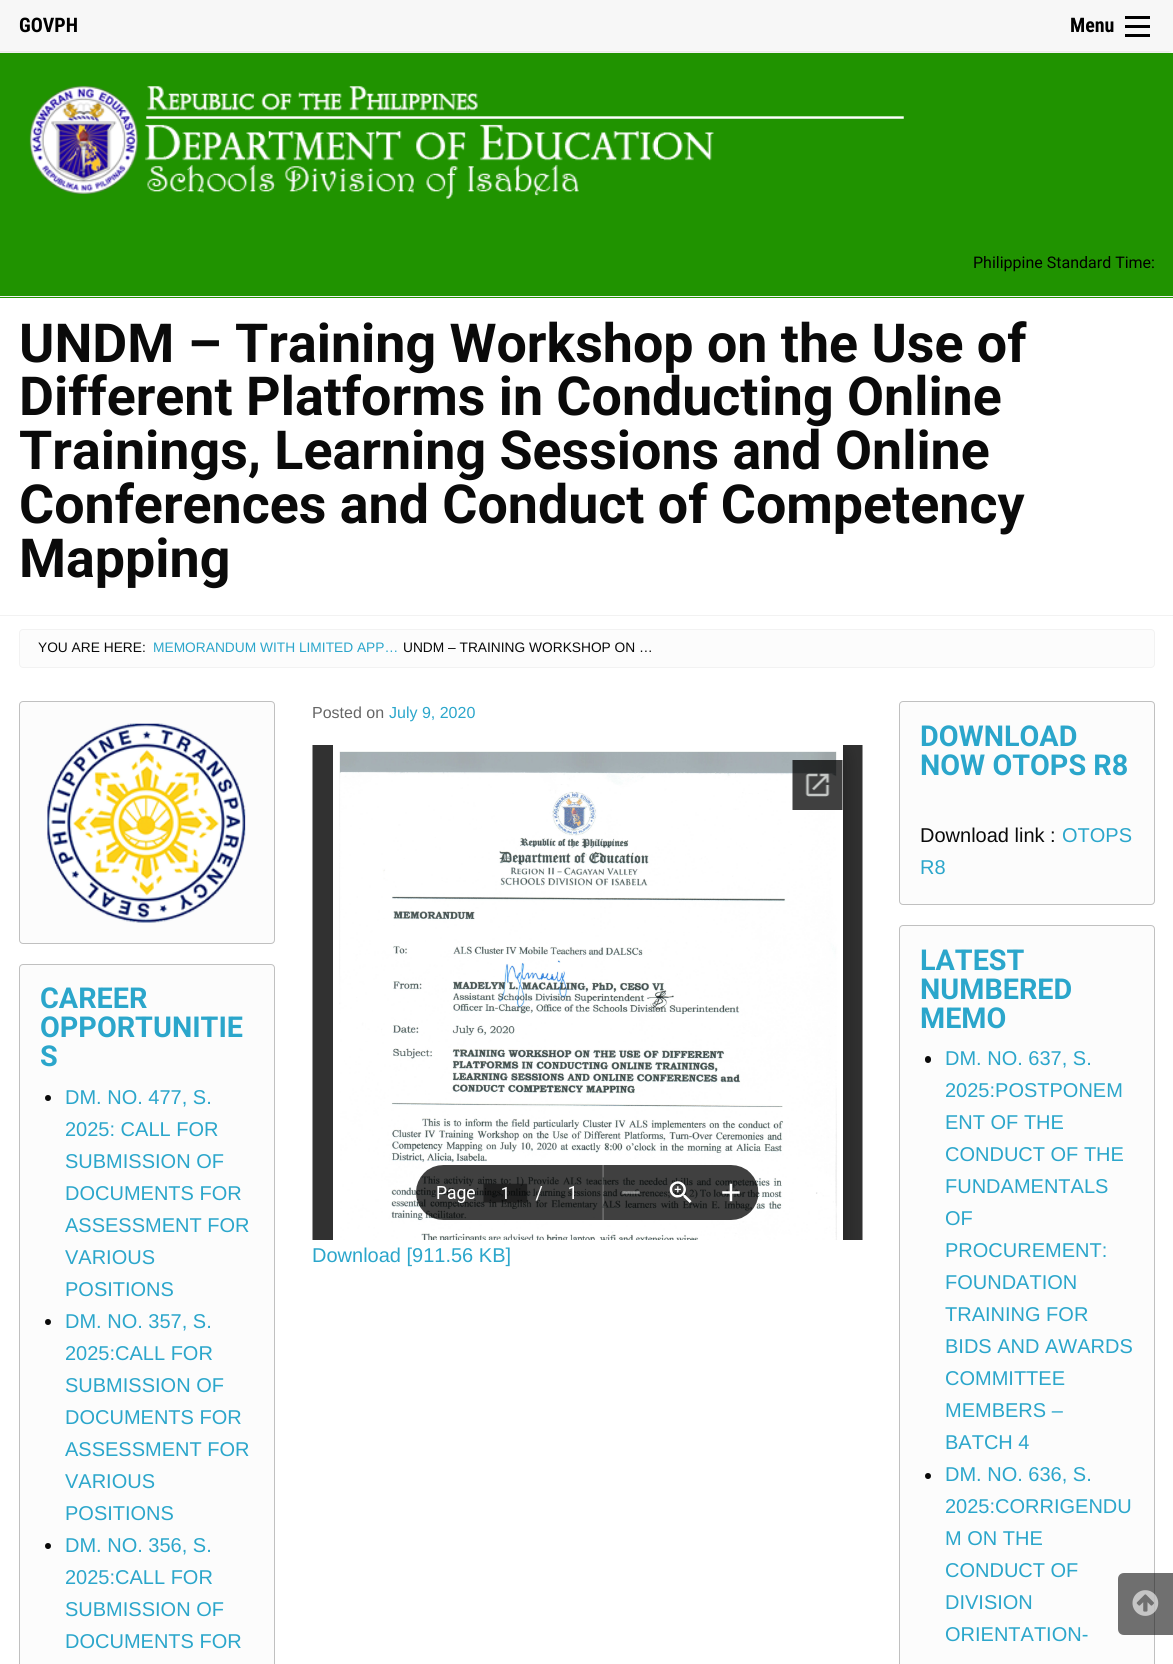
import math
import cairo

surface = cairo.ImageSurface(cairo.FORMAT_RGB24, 1173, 1664)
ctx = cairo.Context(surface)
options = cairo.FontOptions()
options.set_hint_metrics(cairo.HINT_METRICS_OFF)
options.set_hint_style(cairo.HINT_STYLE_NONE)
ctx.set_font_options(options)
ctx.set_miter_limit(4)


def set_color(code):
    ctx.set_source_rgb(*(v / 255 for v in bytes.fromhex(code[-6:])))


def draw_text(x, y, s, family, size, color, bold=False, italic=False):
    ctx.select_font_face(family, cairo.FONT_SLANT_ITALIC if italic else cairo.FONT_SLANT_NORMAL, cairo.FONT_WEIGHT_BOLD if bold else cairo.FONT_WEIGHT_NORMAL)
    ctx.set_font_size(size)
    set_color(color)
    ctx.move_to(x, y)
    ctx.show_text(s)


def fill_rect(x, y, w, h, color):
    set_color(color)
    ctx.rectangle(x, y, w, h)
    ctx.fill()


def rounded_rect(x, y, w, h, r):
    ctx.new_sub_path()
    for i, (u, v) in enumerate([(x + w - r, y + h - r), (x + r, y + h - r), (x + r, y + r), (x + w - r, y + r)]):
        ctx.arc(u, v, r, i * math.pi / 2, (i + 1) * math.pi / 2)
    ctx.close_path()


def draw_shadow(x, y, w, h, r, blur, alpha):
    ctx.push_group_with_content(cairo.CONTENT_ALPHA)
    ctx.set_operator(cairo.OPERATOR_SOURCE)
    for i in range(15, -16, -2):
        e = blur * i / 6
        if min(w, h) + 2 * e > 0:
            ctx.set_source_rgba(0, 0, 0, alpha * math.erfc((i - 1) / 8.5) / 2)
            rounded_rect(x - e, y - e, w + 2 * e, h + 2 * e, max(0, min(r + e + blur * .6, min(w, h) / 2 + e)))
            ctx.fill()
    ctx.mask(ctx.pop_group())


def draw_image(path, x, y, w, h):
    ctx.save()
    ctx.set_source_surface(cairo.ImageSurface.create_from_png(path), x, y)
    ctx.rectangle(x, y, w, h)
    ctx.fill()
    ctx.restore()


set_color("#ffffff")
ctx.paint()
set_color("#000000")
draw_shadow(-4, 0, 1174, 51, 0, 2.5, 0.2)
fill_rect(0, 0, 1173, 51, "#f7f7f7")
draw_text(19, 32, "GOVPH", "Roboto Condensed", 20, "#000000", bold=True)
draw_text(1070, 32, "Menu", "Roboto Condensed", 20, "#000000", bold=True)
fill_rect(1125, 34, 25, 3, "#000000")
fill_rect(1125, 25, 25, 3, "#000000")
fill_rect(1125, 16, 25, 3, "#000000")
fill_rect(0, 53, 1173, 245, "#209300")
fill_rect(0, 296, 1173, 1, "#f2f2f2")
draw_image("assets/img1.png", 29, 86, 875, 113)
draw_text(973, 268, "Philippine Standard Time:", "Roboto", 16, "#000000")
fill_rect(0, 615, 1173, 1, "#f2f2f2")
draw_text(19, 362, "UNDM – Training Workshop on the Use of", "Roboto", 53.75, "#0a0a0a", bold=True)
draw_text(19, 415, "Different Platforms in Conducting Online", "Roboto", 53.75, "#0a0a0a", bold=True)
draw_text(19, 469, "Trainings, Learning Sessions and Online", "Roboto", 53.75, "#0a0a0a", bold=True)
draw_text(19, 523, "Conferences and Conduct of Competency", "Roboto", 53.75, "#0a0a0a", bold=True)
draw_text(19, 577, "Mapping", "Roboto", 53.75, "#0a0a0a", bold=True)
set_color("#fcfcfc")
rounded_rect(19.5, 629.5, 1135, 38, 3.5)
ctx.fill_preserve()
set_color("#f2f2f2")
ctx.set_line_width(1)
ctx.stroke()
draw_text(38, 652, "YOU ARE HERE:", "Liberation Sans", 13.75, "#0a0a0a")
draw_text(153, 652, "MEMORANDUM WITH LIMITED APP…", "Liberation Sans", 13.75, "#2ba6cb")
draw_text(403, 652, "UNDM – TRAINING WORKSHOP ON …", "Liberation Sans", 13.75, "#0a0a0a")
set_color("#fcfcfc")
rounded_rect(19.5, 701.5, 255, 242, 3.5)
ctx.fill_preserve()
set_color("#c0c0c0")
ctx.stroke()
draw_image("assets/img2.png", 47, 723, 199, 200)
set_color("#fcfcfc")
rounded_rect(19.5, 964.5, 255, 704, 3.5)
ctx.fill_preserve()
set_color("#c0c0c0")
ctx.stroke()
draw_text(40, 1008, "CAREER", "Roboto", 28.75, "#2ba6cb", bold=True)
draw_text(40, 1037, "OPPORTUNITIE", "Roboto", 28.75, "#2ba6cb", bold=True)
draw_text(40, 1066, "S", "Roboto", 28.75, "#2ba6cb", bold=True)
set_color("#0a0a0a")
ctx.new_path()
ctx.arc(48, 1098, 3, 0, 2 * math.pi)
ctx.fill()
draw_text(65, 1104, "DM. NO. 477, S.", "Liberation Sans", 20, "#2ba6cb")
draw_text(65, 1136, "2025: CALL FOR", "Liberation Sans", 20, "#2ba6cb")
draw_text(65, 1168, "SUBMISSION OF", "Liberation Sans", 20, "#2ba6cb")
draw_text(65, 1200, "DOCUMENTS FOR", "Liberation Sans", 20, "#2ba6cb")
draw_text(65, 1232, "ASSESSMENT FOR", "Liberation Sans", 20, "#2ba6cb")
draw_text(65, 1264, "VARIOUS", "Liberation Sans", 20, "#2ba6cb")
draw_text(65, 1296, "POSITIONS", "Liberation Sans", 20, "#2ba6cb")
set_color("#0a0a0a")
ctx.new_path()
ctx.arc(48, 1322, 3, 0, 2 * math.pi)
ctx.fill()
draw_text(65, 1328, "DM. NO. 357, S.", "Liberation Sans", 20, "#2ba6cb")
draw_text(65, 1360, "2025:CALL FOR", "Liberation Sans", 20, "#2ba6cb")
draw_text(65, 1392, "SUBMISSION OF", "Liberation Sans", 20, "#2ba6cb")
draw_text(65, 1424, "DOCUMENTS FOR", "Liberation Sans", 20, "#2ba6cb")
draw_text(65, 1456, "ASSESSMENT FOR", "Liberation Sans", 20, "#2ba6cb")
draw_text(65, 1488, "VARIOUS", "Liberation Sans", 20, "#2ba6cb")
draw_text(65, 1520, "POSITIONS", "Liberation Sans", 20, "#2ba6cb")
set_color("#0a0a0a")
ctx.new_path()
ctx.arc(48, 1546, 3, 0, 2 * math.pi)
ctx.fill()
draw_text(65, 1552, "DM. NO. 356, S.", "Liberation Sans", 20, "#2ba6cb")
draw_text(65, 1584, "2025:CALL FOR", "Liberation Sans", 20, "#2ba6cb")
draw_text(65, 1616, "SUBMISSION OF", "Liberation Sans", 20, "#2ba6cb")
draw_text(65, 1648, "DOCUMENTS FOR", "Liberation Sans", 20, "#2ba6cb")
draw_text(312, 718, "Posted on", "Liberation Sans", 16, "#666666")
draw_text(389, 718, "July 9, 2020", "Liberation Sans", 16, "#2ba6cb")
draw_image("assets/img3.png", 312, 745, 551, 495)
draw_text(312, 1262, "Download [911.56 KB]", "Liberation Sans", 20, "#2ba6cb")
set_color("#fcfcfc")
rounded_rect(899.5, 701.5, 255, 203, 3.5)
ctx.fill_preserve()
set_color("#c0c0c0")
ctx.stroke()
draw_text(920, 746, "DOWNLOAD", "Roboto", 28.75, "#2ba6cb", bold=True)
draw_text(920, 775, "NOW OTOPS R8", "Roboto", 28.75, "#2ba6cb", bold=True)
draw_text(920, 842, "Download link :", "Liberation Sans", 20, "#0a0a0a")
draw_text(1062, 842, "OTOPS", "Liberation Sans", 20, "#2ba6cb")
draw_text(920, 874, "R8", "Liberation Sans", 20, "#2ba6cb")
set_color("#fcfcfc")
rounded_rect(899.5, 925.5, 255, 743, 3.5)
ctx.fill_preserve()
set_color("#c0c0c0")
ctx.stroke()
draw_text(920, 970, "LATEST", "Roboto", 28.75, "#2ba6cb", bold=True)
draw_text(920, 999, "NUMBERED", "Roboto", 28.75, "#2ba6cb", bold=True)
draw_text(920, 1028, "MEMO", "Roboto", 28.75, "#2ba6cb", bold=True)
set_color("#0a0a0a")
rounded_rect(925, 1056, 6, 7, 3)
ctx.fill()
draw_text(945, 1065, "DM. NO. 637, S.", "Liberation Sans", 20, "#2ba6cb")
draw_text(945, 1097, "2025:POSTPONEM", "Liberation Sans", 20, "#2ba6cb")
draw_text(945, 1129, "ENT OF THE", "Liberation Sans", 20, "#2ba6cb")
draw_text(945, 1161, "CONDUCT OF THE", "Liberation Sans", 20, "#2ba6cb")
draw_text(945, 1193, "FUNDAMENTALS", "Liberation Sans", 20, "#2ba6cb")
draw_text(945, 1225, "OF", "Liberation Sans", 20, "#2ba6cb")
draw_text(945, 1257, "PROCUREMENT:", "Liberation Sans", 20, "#2ba6cb")
draw_text(945, 1289, "FOUNDATION", "Liberation Sans", 20, "#2ba6cb")
draw_text(945, 1321, "TRAINING FOR", "Liberation Sans", 20, "#2ba6cb")
draw_text(945, 1353, "BIDS AND AWARDS", "Liberation Sans", 20, "#2ba6cb")
draw_text(945, 1385, "COMMITTEE", "Liberation Sans", 20, "#2ba6cb")
draw_text(945, 1417, "MEMBERS –", "Liberation Sans", 20, "#2ba6cb")
draw_text(945, 1449, "BATCH 4", "Liberation Sans", 20, "#2ba6cb")
set_color("#0a0a0a")
ctx.new_path()
ctx.arc(928, 1476, 3, 0, 2 * math.pi)
ctx.fill()
draw_text(945, 1481, "DM. NO. 636, S.", "Liberation Sans", 20, "#2ba6cb")
draw_text(945, 1513, "2025:CORRIGENDU", "Liberation Sans", 20, "#2ba6cb")
draw_text(945, 1545, "M ON THE", "Liberation Sans", 20, "#2ba6cb")
draw_text(945, 1577, "CONDUCT OF", "Liberation Sans", 20, "#2ba6cb")
draw_text(945, 1609, "DIVISION", "Liberation Sans", 20, "#2ba6cb")
draw_text(945, 1641, "ORIENTATION-", "Liberation Sans", 20, "#2ba6cb")
ctx.set_source_rgba(0.067, 0.067, 0.067, 0.6)
ctx.new_path()
ctx.move_to(1124, 1573)
ctx.line_to(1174, 1573)
ctx.line_to(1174, 1635)
ctx.line_to(1124, 1635)
ctx.curve_to(1120.5, 1635, 1118, 1632.5, 1118, 1629)
ctx.line_to(1118, 1579)
ctx.curve_to(1118, 1575.5, 1120.5, 1573, 1124, 1573)
ctx.close_path()
ctx.fill()
draw_image("assets/img4.png", 1132, 1590, 27, 26)
surface.write_to_png("output.png")
